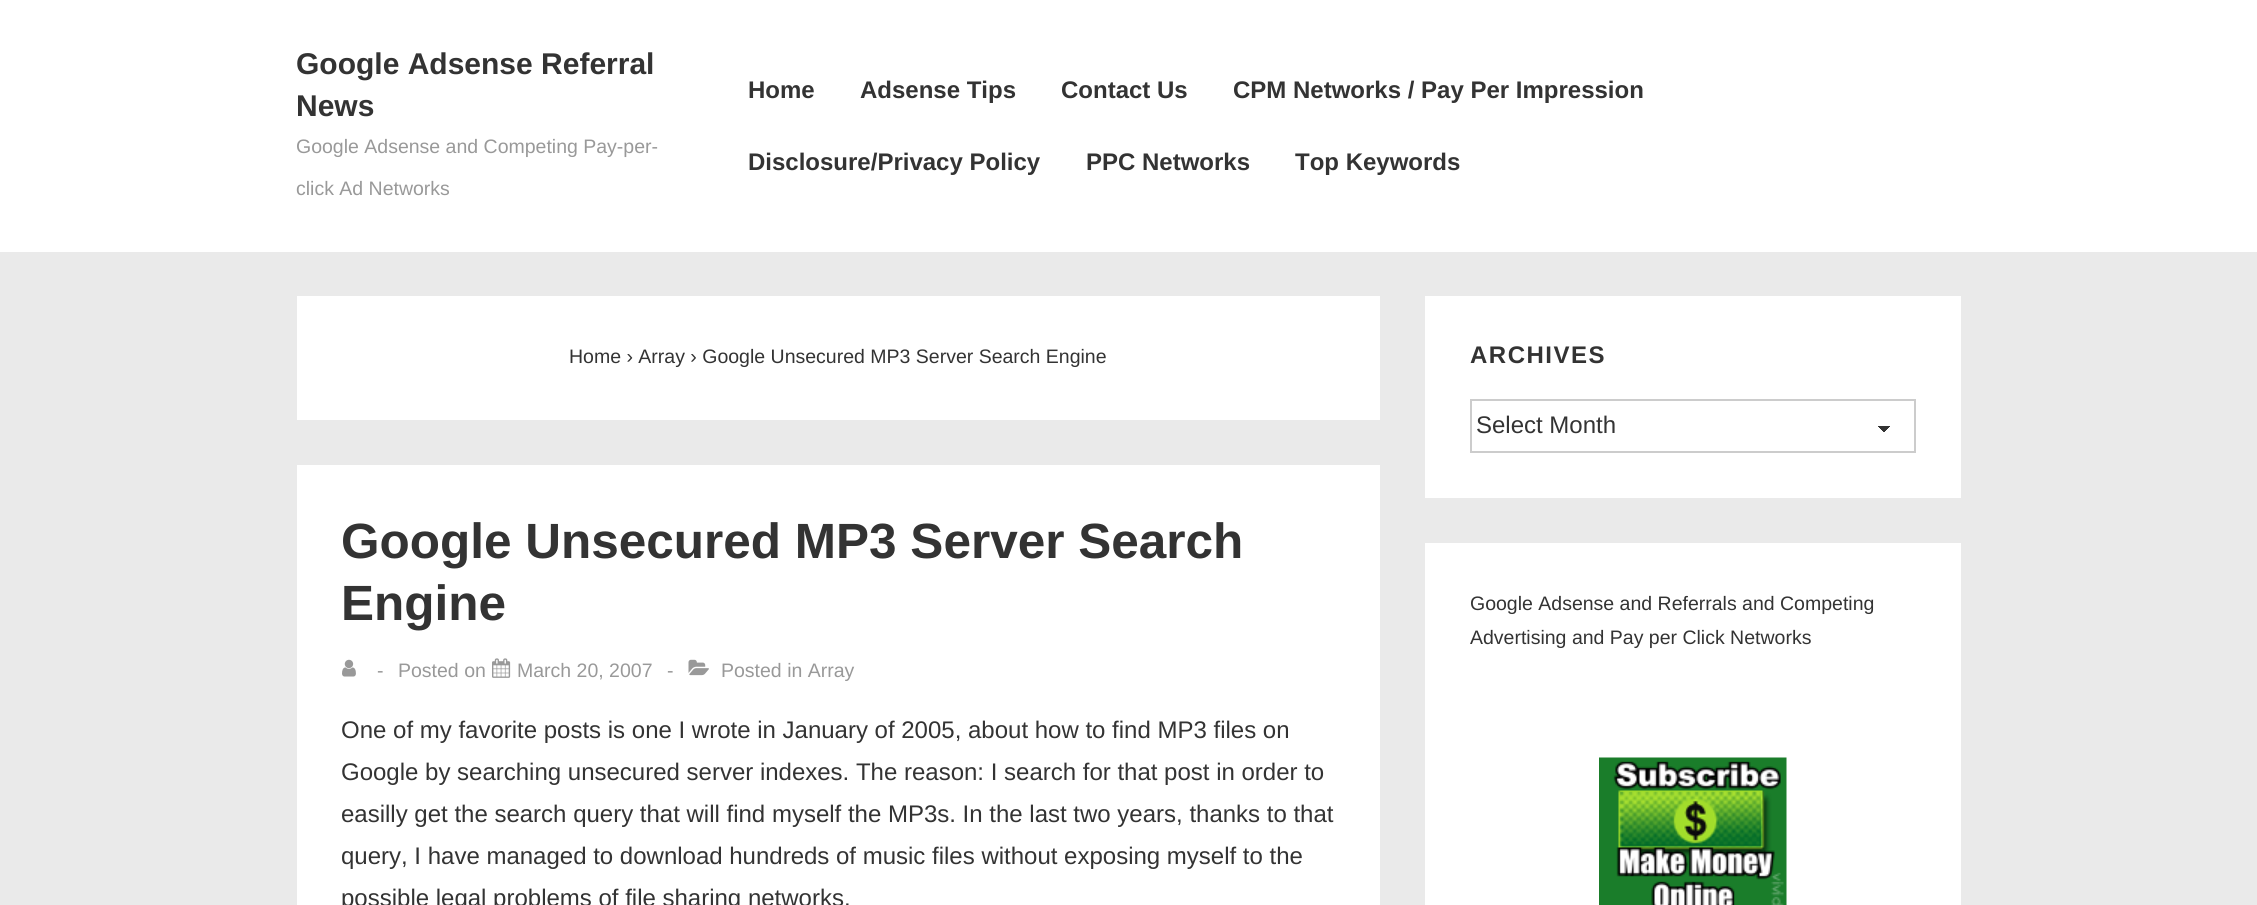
import math
import cairo

surface = cairo.ImageSurface(cairo.FORMAT_RGB24, 2257, 905)
ctx = cairo.Context(surface)
options = cairo.FontOptions()
options.set_hint_metrics(cairo.HINT_METRICS_OFF)
options.set_hint_style(cairo.HINT_STYLE_NONE)
ctx.set_font_options(options)
ctx.set_miter_limit(4)


def set_color(code):
    ctx.set_source_rgb(*(v / 255 for v in bytes.fromhex(code[-6:])))


def draw_text(x, y, s, family, size, color, bold=False, italic=False):
    ctx.select_font_face(family, cairo.FONT_SLANT_ITALIC if italic else cairo.FONT_SLANT_NORMAL, cairo.FONT_WEIGHT_BOLD if bold else cairo.FONT_WEIGHT_NORMAL)
    ctx.set_font_size(size)
    set_color(color)
    ctx.move_to(x, y)
    ctx.show_text(s)


def draw_spaced(x, y, s, letter, word):
    ctx.move_to(x, y)
    for ch in s:
        ctx.show_text(ch)
        ctx.rel_move_to(letter + word * (ch == ' '), 0)


def fill_rect(x, y, w, h, color):
    set_color(color)
    ctx.rectangle(x, y, w, h)
    ctx.fill()


def draw_image(path, x, y, w, h):
    ctx.save()
    ctx.set_source_surface(cairo.ImageSurface.create_from_png(path), x, y)
    ctx.rectangle(x, y, w, h)
    ctx.fill()
    ctx.restore()


set_color("#eaeaea")
ctx.paint()
fill_rect(0, 0, 2257, 252, "#ffffff")
draw_text(296, 74, "Google Adsense Referral", "Liberation Sans", 30, "#333333", bold=True)
draw_text(296, 116, "News", "Liberation Sans", 30, "#333333", bold=True)
draw_text(296, 153, "Google Adsense and Competing Pay-per-", "Liberation Sans", 19.5, "#999999")
draw_text(296, 195, "click Ad Networks", "Liberation Sans", 19.5, "#999999")
draw_text(748, 98, "Home", "Liberation Sans", 24, "#333333", bold=True)
draw_text(860, 98, "Adsense Tips", "Liberation Sans", 24, "#333333", bold=True)
draw_text(1061, 98, "Contact Us", "Liberation Sans", 24, "#333333", bold=True)
draw_text(1233, 98, "CPM Networks / Pay Per Impression", "Liberation Sans", 24, "#333333", bold=True)
draw_text(748, 170, "Disclosure/Privacy Policy", "Liberation Sans", 24, "#333333", bold=True)
draw_text(1086, 170, "PPC Networks", "Liberation Sans", 24, "#333333", bold=True)
draw_text(1295, 170, "Top Keywords", "Liberation Sans", 24, "#333333", bold=True)
fill_rect(297, 296, 1083, 124, "#ffffff")
draw_text(569, 363, "Home › Array › Google Unsecured MP3 Server Search Engine", "Liberation Sans", 19.5, "#333333")
fill_rect(297, 465, 1083, 440, "#ffffff")
draw_text(341, 558, "Google Unsecured MP3 Server Search", "Liberation Sans", 49.5, "#333333", bold=True)
draw_text(341, 620, "Engine", "Liberation Sans", 49.5, "#333333", bold=True)
draw_image("assets/img1.png", 342, 659, 14, 18)
draw_text(377, 677, "-", "Liberation Sans", 19.5, "#999999")
draw_text(398, 677, "Posted on", "Liberation Sans", 19.5, "#999999")
draw_image("assets/img2.png", 492, 658, 19, 20)
draw_text(517, 677, "March 20, 2007", "Liberation Sans", 19.5, "#999999")
draw_text(667, 677, "-", "Liberation Sans", 19.5, "#999999")
draw_image("assets/img3.png", 688, 659, 21, 17)
draw_text(721, 677, "Posted in Array", "Liberation Sans", 19.5, "#999999")
draw_text(341, 738, "One of my favorite posts is one I wrote in January of 2005, about how to find MP3 files on", "Liberation Sans", 24, "#333333")
draw_text(341, 780, "Google by searching unsecured server indexes. The reason: I search for that post in order to", "Liberation Sans", 24, "#333333")
draw_text(341, 822, "easilly get the search query that will find myself the MP3s. In the last two years, thanks to that", "Liberation Sans", 24, "#333333")
draw_text(341, 864, "query, I have managed to download hundreds of music files without exposing myself to the", "Liberation Sans", 24, "#333333")
draw_text(341, 906, "possible legal problems of file sharing networks.", "Liberation Sans", 24, "#333333")
fill_rect(1425, 296, 536, 202, "#ffffff")
ctx.select_font_face("Liberation Sans", cairo.FONT_SLANT_NORMAL, cairo.FONT_WEIGHT_BOLD)
set_color("#333333")
draw_spaced(1470, 363, "ARCHIVES", 1.5, 0)
gradient = cairo.LinearGradient(1884, 425, 1892, 433)
gradient.add_color_stop_rgba(0.5, 0.2, 0.2, 0.2, 1)
gradient.add_color_stop_rgba(0.5, 1, 1, 1, 1)
ctx.set_source(gradient)
ctx.rectangle(1884, 426, 8, 6)
ctx.fill()
gradient = cairo.LinearGradient(1877, 433, 1884, 425)
gradient.add_color_stop_rgba(0.5, 1, 1, 1, 1)
gradient.add_color_stop_rgba(0.5, 0.2, 0.2, 0.2, 1)
ctx.set_source(gradient)
ctx.rectangle(1878, 426, 6, 8)
ctx.fill()
ctx.rectangle(1471, 400, 444, 52)
set_color("#cccccc")
ctx.stroke()
draw_text(1476, 433, "Select Month", "Liberation Sans", 24, "#333333")
fill_rect(1425, 543, 536, 362, "#ffffff")
draw_text(1470, 610, "Google Adsense and Referrals and Competing", "Liberation Sans", 19.5, "#333333")
draw_text(1470, 644, "Advertising and Pay per Click Networks", "Liberation Sans", 19.5, "#333333")
draw_image("assets/img4.png", 1599, 757, 188, 148)
surface.write_to_png("output.png")
